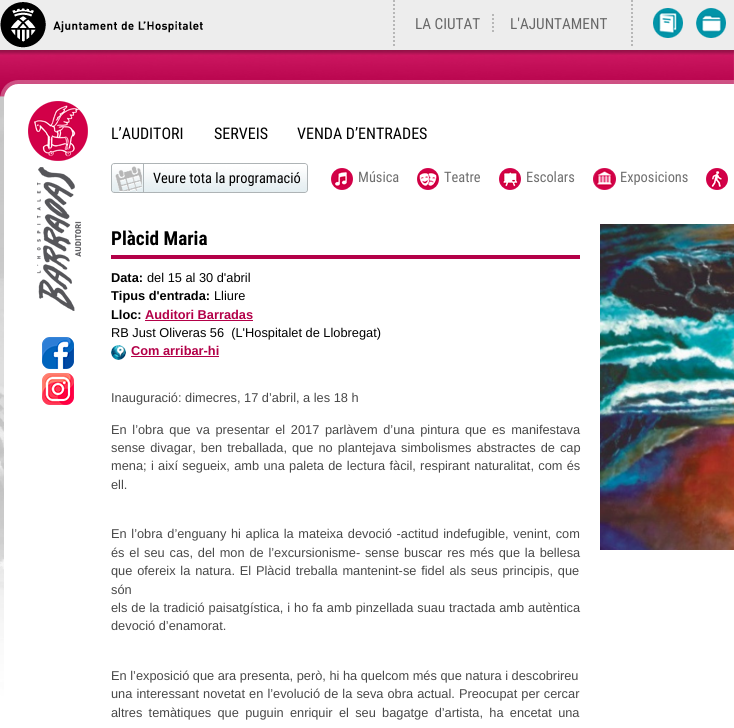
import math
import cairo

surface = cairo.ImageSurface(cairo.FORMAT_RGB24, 734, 728)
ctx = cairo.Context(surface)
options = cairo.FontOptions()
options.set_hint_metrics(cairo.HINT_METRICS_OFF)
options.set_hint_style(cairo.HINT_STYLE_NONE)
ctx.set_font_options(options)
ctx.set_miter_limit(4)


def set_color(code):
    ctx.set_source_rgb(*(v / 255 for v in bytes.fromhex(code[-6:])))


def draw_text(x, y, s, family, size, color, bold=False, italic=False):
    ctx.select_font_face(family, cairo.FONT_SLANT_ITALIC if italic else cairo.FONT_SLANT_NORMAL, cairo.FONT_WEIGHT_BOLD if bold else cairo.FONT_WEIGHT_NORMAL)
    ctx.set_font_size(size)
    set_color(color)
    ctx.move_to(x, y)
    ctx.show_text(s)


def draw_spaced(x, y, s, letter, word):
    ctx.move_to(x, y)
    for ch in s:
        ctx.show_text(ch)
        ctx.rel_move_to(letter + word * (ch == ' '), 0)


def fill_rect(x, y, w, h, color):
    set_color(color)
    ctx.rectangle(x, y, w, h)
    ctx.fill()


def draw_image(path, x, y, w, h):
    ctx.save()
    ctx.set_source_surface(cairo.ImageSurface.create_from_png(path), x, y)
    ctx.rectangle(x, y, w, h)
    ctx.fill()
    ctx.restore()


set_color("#ffffff")
ctx.paint()
draw_image("assets/img1.png", 0, 50, 734, 646)
fill_rect(0, 0, 734, 50, "#ededed")
draw_image("assets/img2.png", 0, 2, 203, 46)
ctx.new_path()
ctx.move_to(394, 0)
ctx.line_to(394, 48)
set_color("#b7b7b7")
ctx.set_dash([2, 2])
ctx.stroke()
draw_text(415, 29, "LA CIUTAT", "Roboto Condensed", 15.25, "#686868")
ctx.new_path()
ctx.move_to(493, 14)
ctx.line_to(493, 33)
set_color("#b7b7b7")
ctx.stroke()
draw_text(510, 29, "L'AJUNTAMENT", "Roboto Condensed", 15.25, "#686868")
ctx.new_path()
ctx.move_to(632, 0)
ctx.line_to(632, 46)
set_color("#b7b7b7")
ctx.stroke()
draw_image("assets/img3.png", 653, 8, 30, 30)
draw_image("assets/img4.png", 696, 8, 30, 30)
draw_image("assets/img5.png", 0, 50, 734, 5)
draw_image("assets/img6.png", 0, 80, 734, 18)
ctx.set_source_rgba(1, 1, 1, 0.3)
ctx.rectangle(0, 98, 4, 541)
ctx.fill()
fill_rect(4, 98, 730, 598, "#ffffff")
draw_image("assets/img7.png", 28, 101, 60, 210)
draw_image("assets/img8.png", 42, 337, 32, 32)
draw_image("assets/img9.png", 42, 373, 32, 32)
draw_text(111, 139, "L’AUDITORI", "Roboto Condensed", 16, "#000000")
draw_text(214, 139, "SERVEIS", "Roboto Condensed", 16, "#000000")
draw_text(297, 139, "VENDA D’ENTRADES", "Roboto Condensed", 16, "#000000")
draw_image("assets/img10.png", 111, 163, 197, 30)
draw_text(153, 183, "Veure tota la programació", "Roboto Condensed", 14.4, "#000000")
draw_image("assets/img11.png", 331, 168, 22, 22)
draw_text(358, 182, "Música", "Roboto Condensed", 14.4, "#6f6f6f")
draw_image("assets/img12.png", 417, 168, 22, 22)
draw_text(444, 182, "Teatre", "Roboto Condensed", 14.4, "#6f6f6f")
draw_image("assets/img13.png", 499, 168, 22, 22)
draw_text(526, 182, "Escolars", "Roboto Condensed", 14.4, "#6f6f6f")
draw_image("assets/img14.png", 593, 168, 23, 22)
draw_text(620, 182, "Exposicions", "Roboto Condensed", 14.4, "#6f6f6f")
draw_image("assets/img15.png", 706, 168, 22, 22)
fill_rect(111, 255, 469, 4, "#b30048")
draw_text(111, 245, "Plàcid Maria", "Roboto Condensed", 19.25, "#000000", bold=True)
draw_text(111, 282, "Data:", "Liberation Sans", 12.8, "#000000", bold=True)
draw_text(147, 282, "del 15 al 30 d'abril", "Liberation Sans", 12.8, "#000000")
draw_text(111, 300, "Tipus d'entrada:", "Liberation Sans", 12.8, "#000000", bold=True)
draw_text(214, 300, "Lliure", "Liberation Sans", 12.8, "#000000")
draw_text(111, 319, "Lloc:", "Liberation Sans", 12.8, "#000000", bold=True)
draw_text(145, 319, "Auditori Barradas", "Liberation Sans", 12.8, "#b30048", bold=True)
fill_rect(145, 320, 108, 1, "#b30048")
draw_text(111, 337, "RB Just Oliveras 56  (L'Hospitalet de Llobregat)", "Liberation Sans", 12.8, "#000000")
draw_image("assets/img16.png", 111, 345, 15, 15)
draw_text(131, 355, "Com arribar-hi", "Liberation Sans", 12.8, "#b30048", bold=True)
fill_rect(131, 356, 88, 1, "#b30048")
draw_text(111, 402, "Inauguració: dimecres, 17 d’abril, a les 18 h", "Liberation Sans", 12.8, "#484848")
draw_spaced(111, 434, "En l’obra que va presentar el 2017 parlàvem d’una pintura que es manifestava", 0, 2.1)
draw_spaced(111, 452, "sense divagar, ben treballada, que no plantejava simbolismes abstractes de cap", 0, 1.5)
draw_spaced(111, 470, "mena; i així segueix, amb una paleta de lectura fàcil, respirant naturalitat, com és", 0, 0.75)
draw_text(111, 489, "ell.", "Liberation Sans", 12.8, "#484848")
draw_spaced(111, 538, "En l’obra d’enguany hi aplica la mateixa devoció -actitud indefugible, venint, com", 0, 1.1)
draw_spaced(111, 557, "és el seu cas, del mon de l’excursionisme- sense buscar res més que la bellesa", 0, 1.25)
draw_spaced(111, 575, "que ofereix la natura. El Plàcid treballa mantenint-se fidel als seus principis, que", 0, 1.25)
draw_text(111, 594, "són", "Liberation Sans", 12.8, "#484848")
draw_spaced(111, 612, "els de la tradició paisatgística, i ho fa amb pinzellada suau tractada amb autèntica", 0, 0.4)
draw_text(111, 630, "devoció d’enamorat.", "Liberation Sans", 12.8, "#484848")
draw_text(111, 680, "En l’exposició que ara presenta, però, hi ha quelcom més que natura i descobrireu", "Liberation Sans", 12.8, "#484848")
draw_spaced(111, 698, "una interessant novetat en l’evolució de la seva obra actual. Preocupat per cercar", 0, 0.5)
draw_spaced(111, 717, "altres temàtiques que puguin enriquir el seu bagatge d’artista, ha encetat una", 0, 2.75)
draw_image("assets/img17.png", 600, 224, 134, 326)
surface.write_to_png("output.png")
